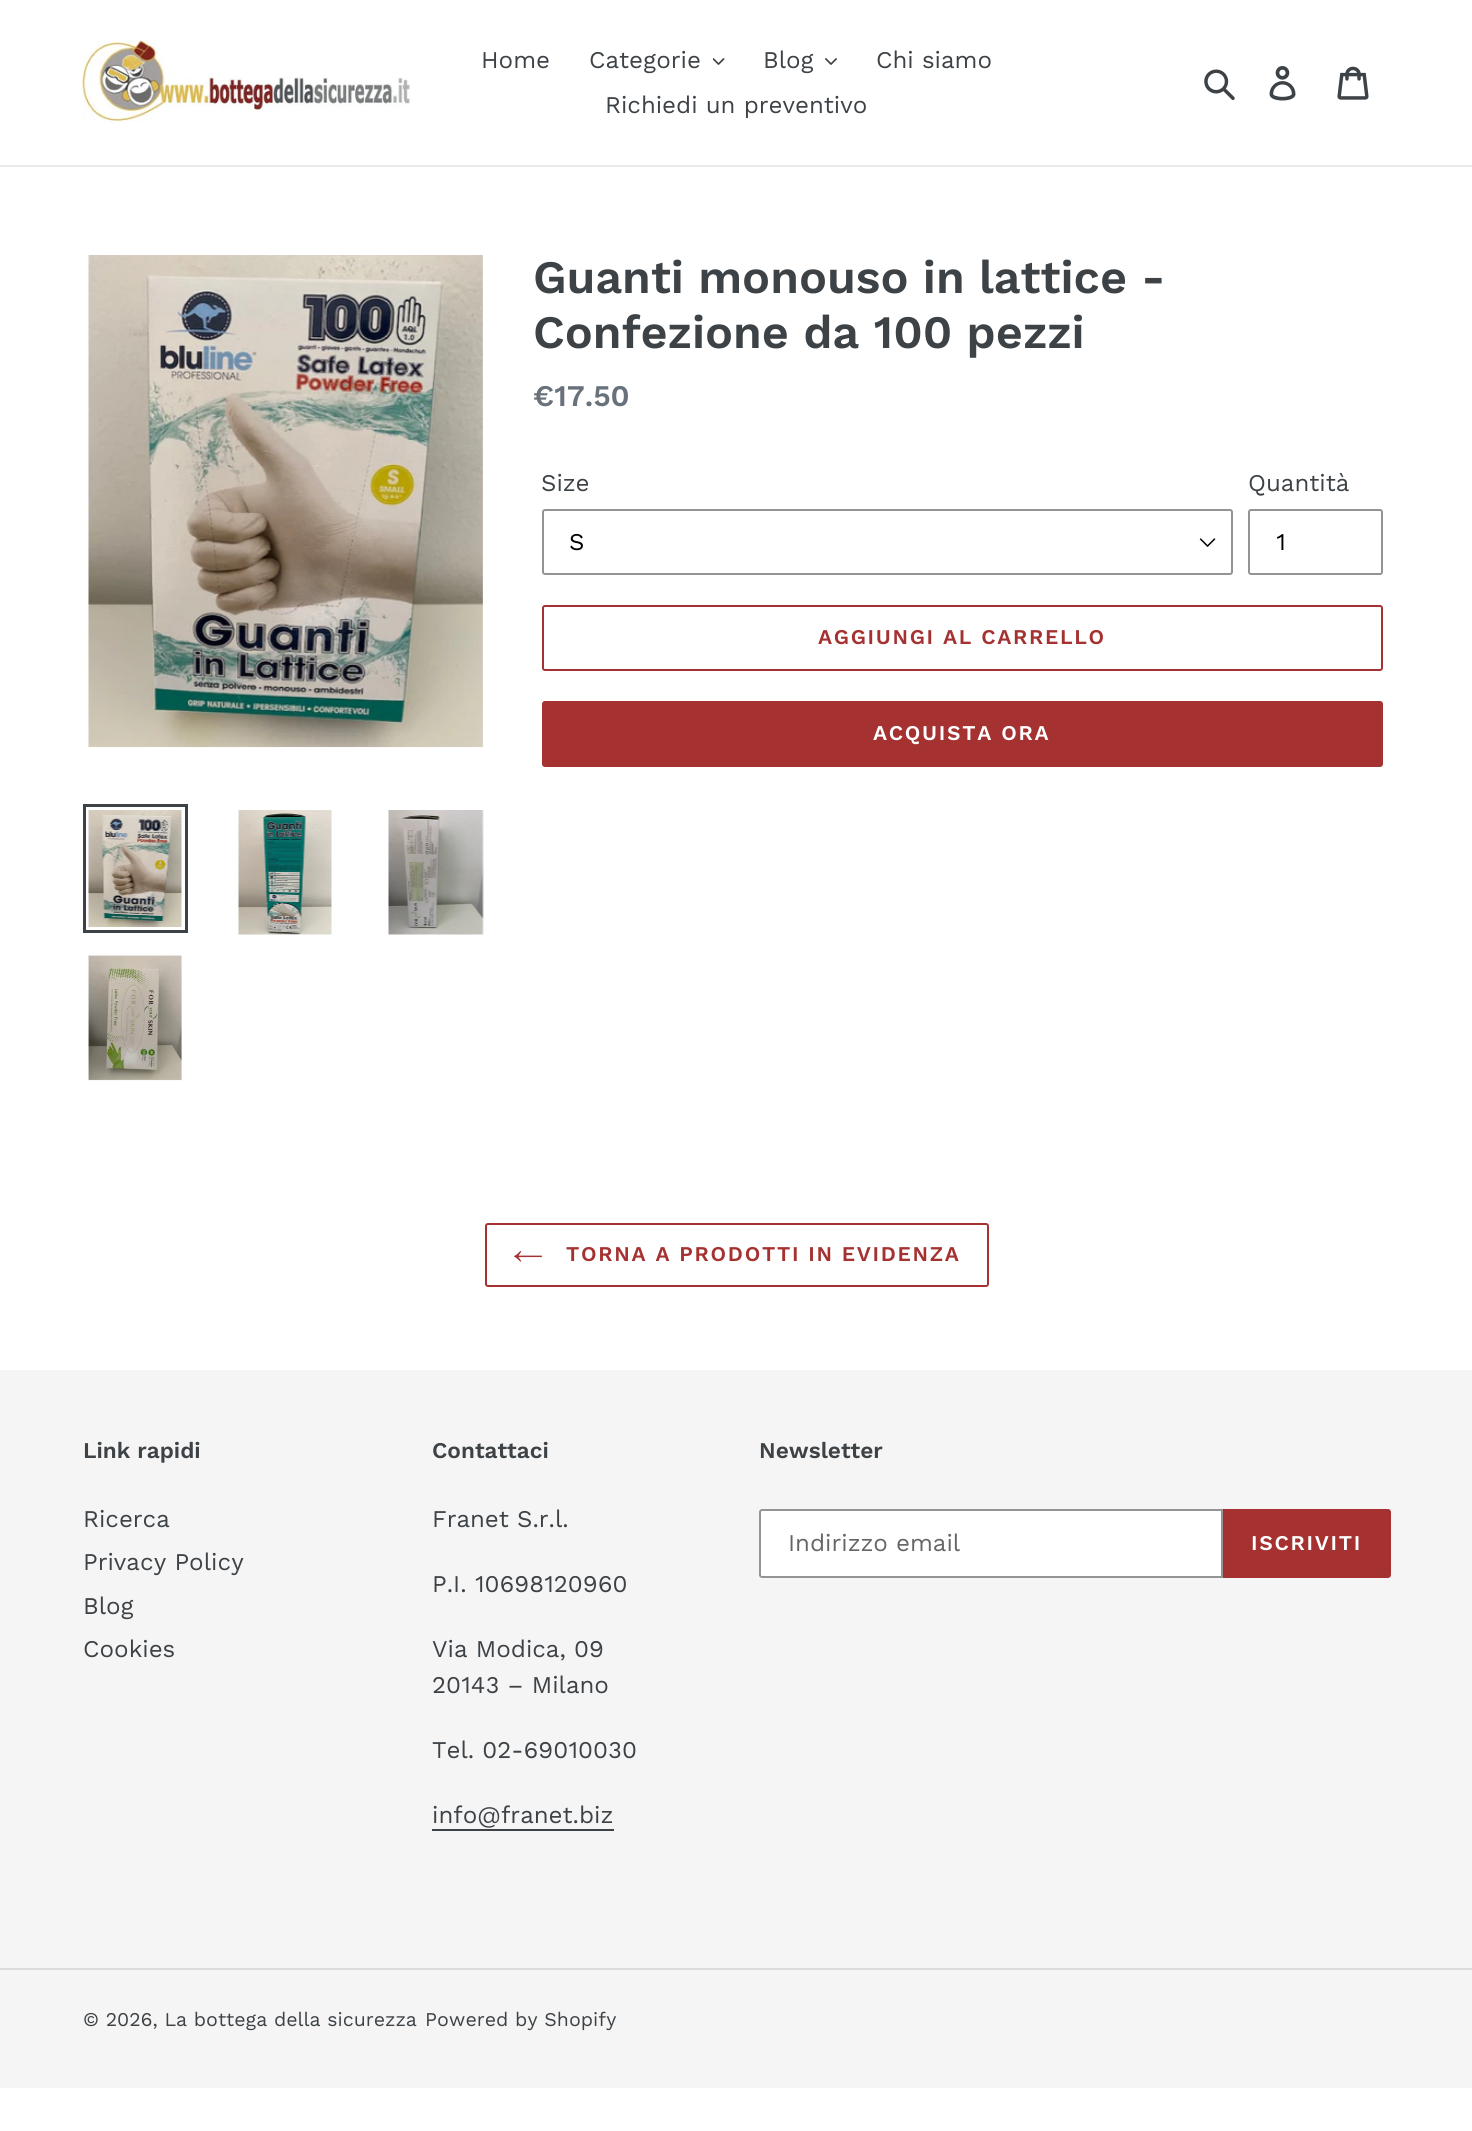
import math
import cairo

surface = cairo.ImageSurface(cairo.FORMAT_RGB24, 1472, 2131)
ctx = cairo.Context(surface)
options = cairo.FontOptions()
options.set_hint_metrics(cairo.HINT_METRICS_OFF)
options.set_hint_style(cairo.HINT_STYLE_NONE)
ctx.set_font_options(options)
ctx.set_miter_limit(4)


def set_color(code):
    ctx.set_source_rgb(*(v / 255 for v in bytes.fromhex(code[-6:])))


def draw_text(x, y, s, family, size, color, bold=False, italic=False):
    ctx.select_font_face(family, cairo.FONT_SLANT_ITALIC if italic else cairo.FONT_SLANT_NORMAL, cairo.FONT_WEIGHT_BOLD if bold else cairo.FONT_WEIGHT_NORMAL)
    ctx.set_font_size(size)
    set_color(color)
    ctx.move_to(x, y)
    ctx.show_text(s)


def draw_spaced(x, y, s, letter, word):
    ctx.move_to(x, y)
    for ch in s:
        ctx.show_text(ch)
        ctx.rel_move_to(letter + word * (ch == ' '), 0)


def fill_rect(x, y, w, h, color):
    set_color(color)
    ctx.rectangle(x, y, w, h)
    ctx.fill()


def rounded_rect(x, y, w, h, r):
    ctx.new_sub_path()
    for i, (u, v) in enumerate([(x + w - r, y + h - r), (x + r, y + h - r), (x + r, y + r), (x + w - r, y + r)]):
        ctx.arc(u, v, r, i * math.pi / 2, (i + 1) * math.pi / 2)
    ctx.close_path()


def draw_image(path, x, y, w, h):
    ctx.save()
    ctx.set_source_surface(cairo.ImageSurface.create_from_png(path), x, y)
    ctx.rectangle(x, y, w, h)
    ctx.fill()
    ctx.restore()


set_color("#ffffff")
ctx.paint()
fill_rect(0, 165, 1472, 2, "#e8e9eb")
draw_image("assets/img1.png", 82, 40, 328, 84)
draw_text(481, 68, "Home", "Work Sans", 24, "#3d4246")
draw_text(589, 68, "Categorie", "Work Sans", 24, "#3d4246")
draw_image("assets/img2.png", 713, 58, 12, 7)
draw_text(763, 68, "Blog", "Work Sans", 24, "#3d4246")
draw_image("assets/img3.png", 825, 58, 12, 7)
draw_text(876, 68, "Chi siamo", "Work Sans", 24, "#3d4246")
draw_text(605, 113, "Richiedi un preventivo", "Work Sans", 24, "#3d4246")
draw_image("assets/img4.png", 1204, 69, 31, 31)
draw_image("assets/img5.png", 1269, 66, 27, 35)
draw_image("assets/img6.png", 1337, 66, 32, 34)
draw_image("assets/img7.png", 88, 255, 395, 493)
ctx.rectangle(84.5, 805.5, 102, 126)
ctx.set_line_width(3)
ctx.stroke()
draw_image("assets/img8.png", 88, 810, 94, 117)
draw_image("assets/img9.png", 238, 810, 94, 125)
draw_image("assets/img10.png", 388, 810, 96, 125)
draw_image("assets/img11.png", 88, 955, 94, 126)
draw_text(533, 293, "Guanti monouso in lattice -", "Work Sans SemiBold", 46.5, "#3d4246")
draw_text(533, 348, "Confezione da 100 pezzi", "Work Sans SemiBold", 46.5, "#3d4246")
draw_text(533, 406, "€17.50", "Work Sans SemiBold", 30, "#69727b")
draw_text(541, 491, "Size", "Work Sans", 24, "#3d4246")
draw_image("assets/img12.png", 1199, 538, 17, 9)
rounded_rect(543, 510, 689, 64, 2)
set_color("#949494")
ctx.set_line_width(2)
ctx.stroke()
draw_text(569, 550, "S", "Work Sans", 24, "#000000")
draw_text(1248, 491, "Quantità", "Work Sans", 24, "#3d4246")
rounded_rect(1249, 510, 133, 64, 2)
set_color("#949494")
ctx.stroke()
draw_text(1276, 550, "1", "Work Sans", 24, "#000000")
rounded_rect(543, 606, 839, 64, 2)
set_color("#a53131")
ctx.stroke()
ctx.select_font_face("Work Sans SemiBold")
ctx.set_font_size(21)
draw_spaced(818, 644, "AGGIUNGI AL CARRELLO", 1.7, 0)
rounded_rect(542, 701, 841, 66, 3)
ctx.fill()
set_color("#ffffff")
draw_spaced(873, 740, "ACQUISTA ORA", 1.7, 0)
rounded_rect(486, 1224, 502, 62, 2)
set_color("#a53131")
ctx.stroke()
draw_image("assets/img13.png", 514, 1251, 28, 11)
draw_spaced(566, 1261, "TORNA A PRODOTTI IN EVIDENZA", 1.7, 0)
fill_rect(0, 1370, 1472, 718, "#f5f5f5")
draw_text(83, 1458, "Link rapidi", "Work Sans SemiBold", 22.5, "#3d4246")
draw_text(83, 1527, "Ricerca", "Work Sans", 24, "#3d4246")
draw_text(83, 1570, "Privacy Policy", "Work Sans", 24, "#3d4246")
draw_text(83, 1614, "Blog", "Work Sans", 24, "#3d4246")
draw_text(83, 1657, "Cookies", "Work Sans", 24, "#3d4246")
draw_text(432, 1458, "Contattaci", "Work Sans SemiBold", 22.5, "#3d4246")
draw_text(432, 1527, "Franet S.r.l.", "Work Sans", 24, "#3d4246")
draw_text(432, 1592, "P.I. 10698120960", "Work Sans", 24, "#3d4246")
draw_text(432, 1657, "Via Modica, 09", "Work Sans", 24, "#3d4246")
draw_text(432, 1693, "20143 – Milano", "Work Sans", 24, "#3d4246")
draw_text(432, 1758, "Tel. 02-69010030", "Work Sans", 24, "#3d4246")
draw_text(432, 1823, "info@franet.biz", "Work Sans", 24, "#3d4246")
fill_rect(432, 1829, 182, 2, "#3d4246")
draw_text(759, 1458, "Newsletter", "Work Sans SemiBold", 22.5, "#3d4246")
set_color("#ffffff")
ctx.new_path()
ctx.move_to(762, 1510)
ctx.line_to(1222, 1510)
ctx.line_to(1222, 1577)
ctx.line_to(762, 1577)
ctx.curve_to(761, 1577, 760, 1576, 760, 1575)
ctx.line_to(760, 1512)
ctx.curve_to(760, 1511, 761, 1510, 762, 1510)
ctx.close_path()
ctx.fill_preserve()
set_color("#949494")
ctx.stroke()
draw_text(788, 1551, "Indirizzo email", "Work Sans", 24, "#666666")
set_color("#a53131")
ctx.new_path()
ctx.move_to(1223, 1509)
ctx.line_to(1388, 1509)
ctx.curve_to(1389.5, 1509, 1391, 1510.5, 1391, 1512)
ctx.line_to(1391, 1575)
ctx.curve_to(1391, 1576.5, 1389.5, 1578, 1388, 1578)
ctx.line_to(1223, 1578)
ctx.close_path()
ctx.fill()
ctx.select_font_face("Work Sans SemiBold")
ctx.set_font_size(21)
set_color("#ffffff")
draw_spaced(1251, 1550, "ISCRIVITI", 1.7, 0)
fill_rect(0, 1968, 1472, 2, "#dcdcdc")
draw_text(83, 2026, "© 2026, La bottega della sicurezza", "Work Sans", 19.5, "#3d4246")
draw_text(425, 2026, "Powered by Shopify", "Work Sans", 19.5, "#3d4246")
surface.write_to_png("output.png")
